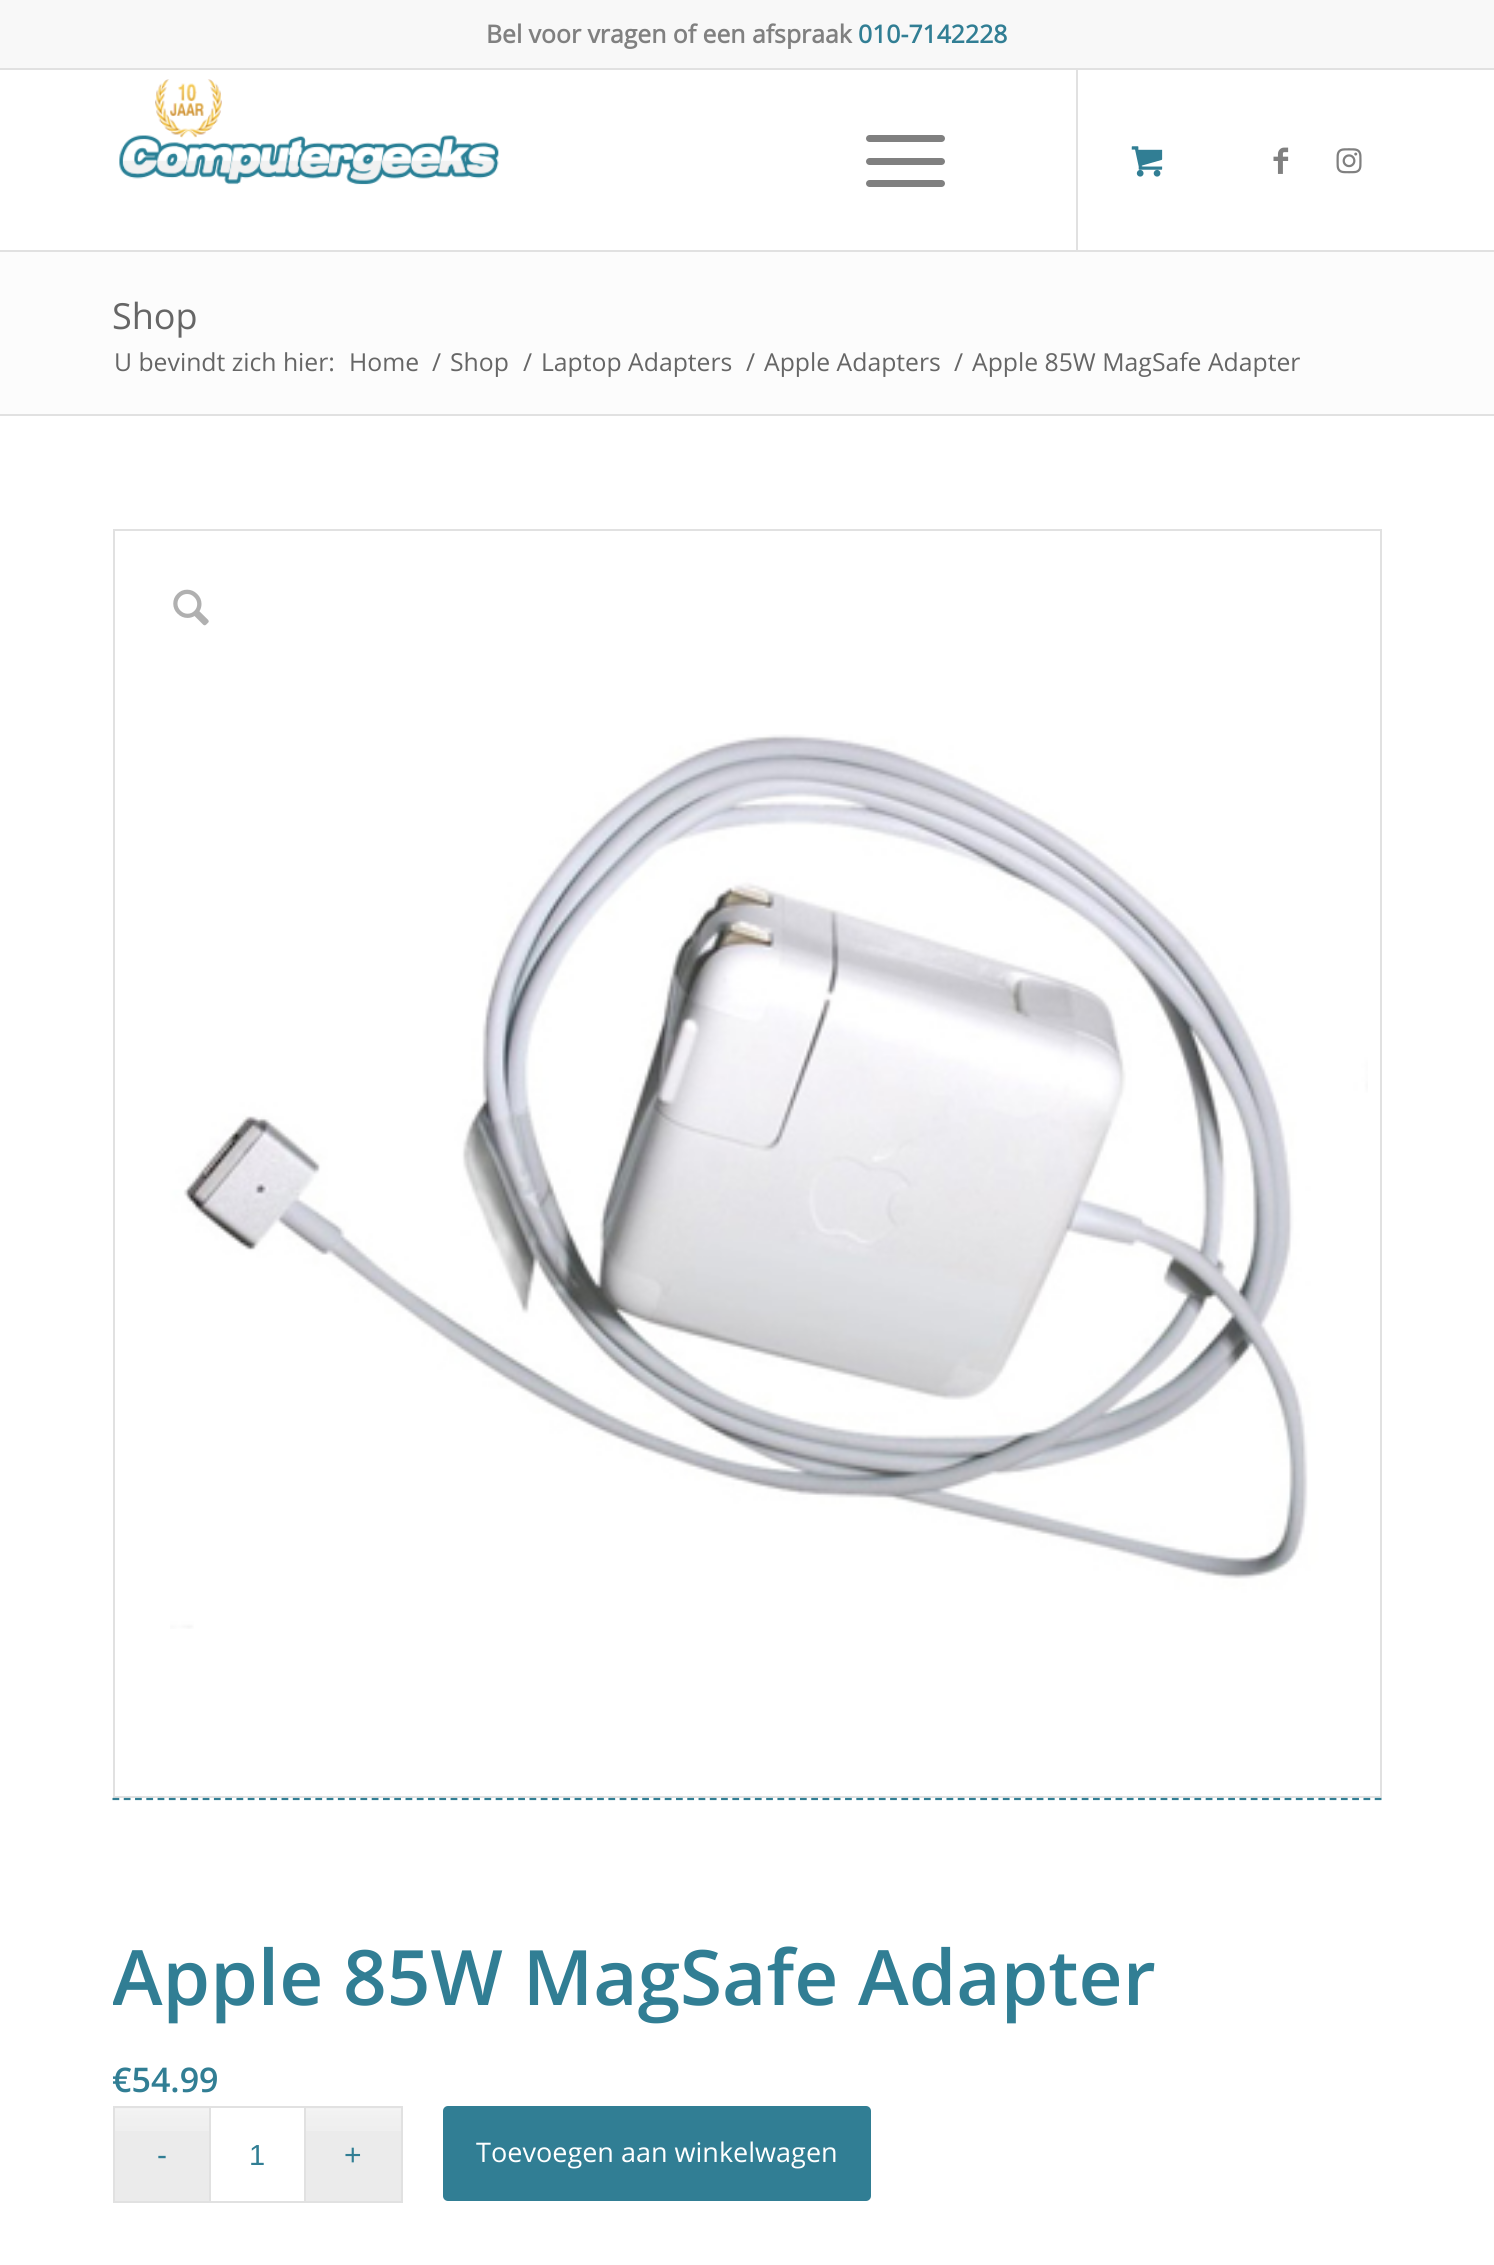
import math
import cairo

surface = cairo.ImageSurface(cairo.FORMAT_RGB24, 1494, 2265)
ctx = cairo.Context(surface)
options = cairo.FontOptions()
options.set_hint_metrics(cairo.HINT_METRICS_OFF)
options.set_hint_style(cairo.HINT_STYLE_NONE)
ctx.set_font_options(options)
ctx.set_miter_limit(4)


def set_color(code):
    ctx.set_source_rgb(*(v / 255 for v in bytes.fromhex(code[-6:])))


def draw_text(x, y, s, family, size, color, bold=False, italic=False):
    ctx.select_font_face(family, cairo.FONT_SLANT_ITALIC if italic else cairo.FONT_SLANT_NORMAL, cairo.FONT_WEIGHT_BOLD if bold else cairo.FONT_WEIGHT_NORMAL)
    ctx.set_font_size(size)
    set_color(color)
    ctx.move_to(x, y)
    ctx.show_text(s)


def fill_rect(x, y, w, h, color):
    set_color(color)
    ctx.rectangle(x, y, w, h)
    ctx.fill()


def rounded_rect(x, y, w, h, r):
    ctx.new_sub_path()
    for i, (u, v) in enumerate([(x + w - r, y + h - r), (x + r, y + h - r), (x + r, y + r), (x + w - r, y + r)]):
        ctx.arc(u, v, r, i * math.pi / 2, (i + 1) * math.pi / 2)
    ctx.close_path()


def draw_image(path, x, y, w, h):
    ctx.save()
    ctx.set_source_surface(cairo.ImageSurface.create_from_png(path), x, y)
    ctx.rectangle(x, y, w, h)
    ctx.fill()
    ctx.restore()


set_color("#ffffff")
ctx.paint()
fill_rect(0, 0, 1494, 68, "#f8f8f8")
fill_rect(0, 68, 1494, 2, "#e1e1e1")
draw_text(486, 43, "Bel voor vragen of een afspraak", "Open Sans", 24.75, "#808080", bold=True)
draw_text(858, 43, "010-7142228", "Open Sans", 24.75, "#317e94", bold=True)
fill_rect(0, 250, 1494, 2, "#e1e1e1")
draw_image("assets/img1.png", 119, 79, 380, 106)
fill_rect(1076, 70, 2, 180, "#e1e1e1")
set_color("#808080")
rounded_rect(866, 158, 79, 7, 3.5)
ctx.fill()
rounded_rect(866, 135, 79, 7, 3.5)
ctx.fill()
rounded_rect(866, 180, 79, 7, 3.5)
ctx.fill()
draw_image("assets/img2.png", 1131, 146, 32, 31)
draw_image("assets/img3.png", 1273, 147, 16, 27)
draw_image("assets/img4.png", 1336, 148, 26, 26)
fill_rect(0, 252, 1494, 162, "#fcfcfc")
draw_text(112, 329, "Shop", "Open Sans", 36, "#666666")
draw_text(114, 371, "U bevindt zich hier:", "Open Sans", 24.75, "#666666")
draw_text(349, 371, "Home", "Open Sans", 24.75, "#666666")
draw_text(432, 371, "/", "Open Sans", 24.75, "#666666")
draw_text(450, 371, "Shop", "Open Sans", 24.75, "#666666")
draw_text(523, 371, "/", "Open Sans", 24.75, "#666666")
draw_text(541, 371, "Laptop Adapters", "Open Sans", 24.75, "#666666")
draw_text(746, 371, "/", "Open Sans", 24.75, "#666666")
draw_text(764, 371, "Apple Adapters", "Open Sans", 24.75, "#666666")
draw_text(954, 371, "/", "Open Sans", 24.75, "#666666")
draw_text(972, 371, "Apple 85W MagSafe Adapter", "Open Sans", 24.75, "#666666")
fill_rect(0, 414, 1494, 2, "#e1e1e1")
ctx.rectangle(114, 530, 1267, 1267)
ctx.stroke()
draw_image("assets/img5.png", 170, 734, 1198, 895)
draw_image("assets/img6.png", 173, 589, 36, 37)
ctx.new_path()
ctx.move_to(112.5, 1799)
ctx.line_to(1381.5, 1799)
set_color("#317e94")
ctx.set_line_width(2.2)
ctx.set_dash([6.75, 4.52])
ctx.stroke()
ctx.save()
ctx.rectangle(113, 1935, 1269, 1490)
ctx.clip()
draw_text(112, 2005, "Apple 85W MagSafe Adapter", "Open Sans SemiBold", 76.5, "#317e94")
ctx.restore()
draw_text(112, 2092, "€54.99", "Open Sans SemiBold", 34, "#317e94")
fill_rect(115, 2108, 94, 93, "#ebebeb")
draw_image("assets/img7.png", 115, 2108, 94, 23)
fill_rect(306, 2108, 95, 93, "#ebebeb")
draw_image("assets/img8.png", 306, 2108, 95, 23)
draw_text(157, 2165, "-", "Liberation Sans", 30, "#317e94")
fill_rect(113, 2106, 96, 2, "#e1e1e1")
fill_rect(113, 2201, 96, 2, "#e1e1e1")
fill_rect(113, 2106, 2, 97, "#e1e1e1")
ctx.rectangle(210, 2107, 95, 95)
ctx.set_line_width(2)
ctx.set_dash([])
ctx.stroke()
draw_text(249, 2165, "1", "Liberation Sans", 29, "#317e94")
draw_text(344, 2165, "+", "Liberation Sans", 30, "#317e94")
fill_rect(306, 2106, 97, 2, "#e1e1e1")
fill_rect(401, 2106, 2, 97, "#e1e1e1")
fill_rect(306, 2201, 97, 2, "#e1e1e1")
set_color("#317e94")
rounded_rect(443, 2106, 428, 95, 5)
ctx.fill()
draw_text(476, 2162, "Toevoegen aan winkelwagen", "Open Sans", 27, "#ffffff")
surface.write_to_png("output.png")
